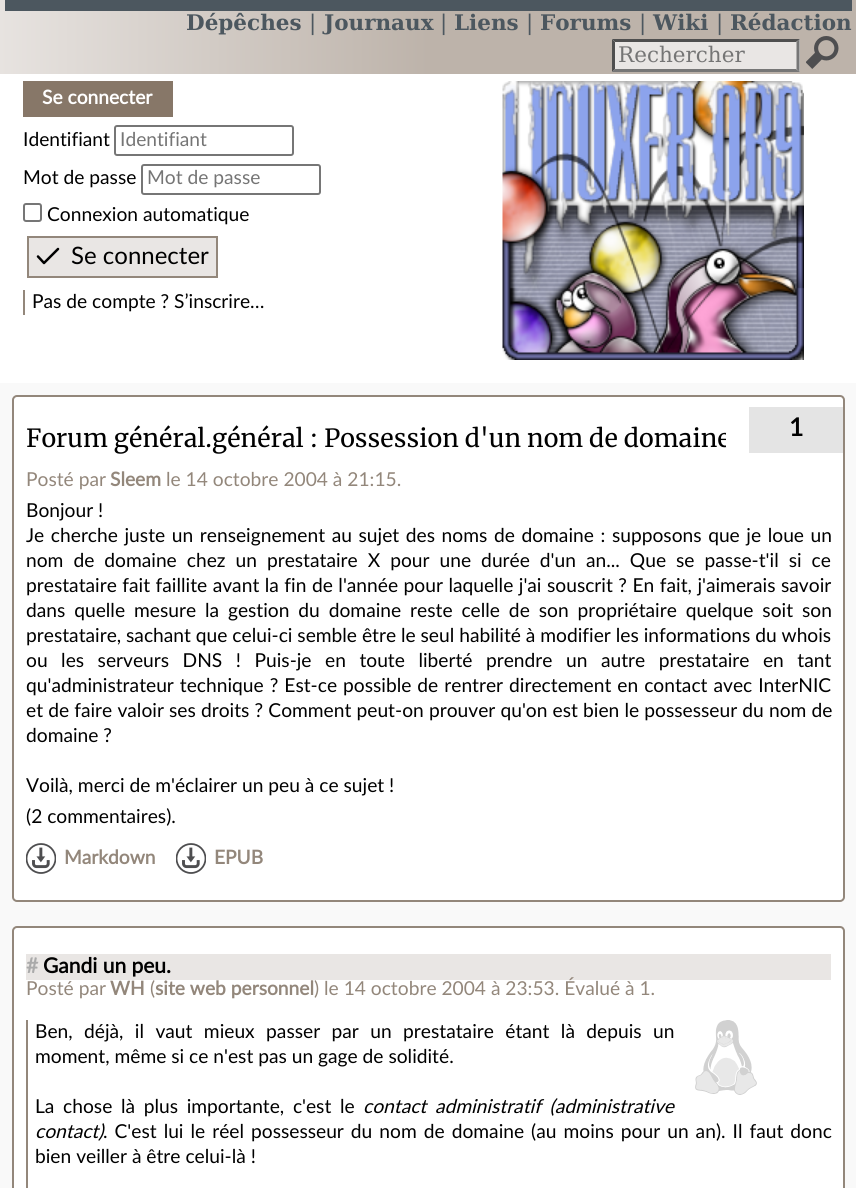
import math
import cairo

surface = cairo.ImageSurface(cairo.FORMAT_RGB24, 856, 1188)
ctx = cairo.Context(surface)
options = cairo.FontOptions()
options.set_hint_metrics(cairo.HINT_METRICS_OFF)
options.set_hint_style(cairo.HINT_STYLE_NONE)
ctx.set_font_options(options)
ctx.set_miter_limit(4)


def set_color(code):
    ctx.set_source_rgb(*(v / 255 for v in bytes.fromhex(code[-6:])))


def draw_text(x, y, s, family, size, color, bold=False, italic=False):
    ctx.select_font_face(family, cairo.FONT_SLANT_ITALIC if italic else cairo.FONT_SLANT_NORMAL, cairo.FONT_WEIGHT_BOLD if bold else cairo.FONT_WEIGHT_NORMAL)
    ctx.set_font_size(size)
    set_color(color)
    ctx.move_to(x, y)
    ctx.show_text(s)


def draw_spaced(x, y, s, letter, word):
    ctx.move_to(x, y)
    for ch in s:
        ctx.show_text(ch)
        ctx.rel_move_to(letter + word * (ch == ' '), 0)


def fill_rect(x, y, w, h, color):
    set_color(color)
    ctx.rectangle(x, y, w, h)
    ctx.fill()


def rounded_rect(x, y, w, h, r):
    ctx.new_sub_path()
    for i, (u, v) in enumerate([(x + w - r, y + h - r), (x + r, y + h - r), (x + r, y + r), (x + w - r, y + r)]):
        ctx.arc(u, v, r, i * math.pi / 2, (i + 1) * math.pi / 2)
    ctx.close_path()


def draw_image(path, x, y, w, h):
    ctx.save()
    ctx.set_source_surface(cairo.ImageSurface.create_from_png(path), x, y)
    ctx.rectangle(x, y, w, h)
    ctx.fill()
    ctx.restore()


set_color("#ffffff")
ctx.paint()
gradient = cairo.LinearGradient(0, 37, 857, 37)
gradient.add_color_stop_rgba(0, 0.906, 0.89, 0.878, 1)
gradient.add_color_stop_rgba(0.5, 0.741, 0.702, 0.667, 1)
ctx.set_source(gradient)
ctx.rectangle(0, 0, 856, 74)
ctx.fill()
fill_rect(5, 0, 847, 11, "#4c575f")
draw_text(186, 30, "Dépêches", "DejaVu Serif", 21.5, "#4c575f", bold=True)
draw_text(309, 30, "|", "DejaVu Serif", 21.5, "#4c575f")
draw_text(324, 30, "Journaux", "DejaVu Serif", 21.5, "#4c575f", bold=True)
draw_text(440, 30, "|", "DejaVu Serif", 21.5, "#4c575f")
draw_text(454, 30, "Liens", "DejaVu Serif", 21.5, "#4c575f", bold=True)
draw_text(526, 30, "|", "DejaVu Serif", 21.5, "#4c575f")
draw_text(540, 30, "Forums", "DejaVu Serif", 21.5, "#4c575f", bold=True)
draw_text(639, 30, "|", "DejaVu Serif", 21.5, "#4c575f")
draw_text(653, 30, "Wiki", "DejaVu Serif", 21.5, "#4c575f", bold=True)
draw_text(716, 30, "|", "DejaVu Serif", 21.5, "#4c575f")
draw_text(730, 30, "Rédaction", "DejaVu Serif", 21.5, "#4c575f", bold=True)
fill_rect(612, 39, 188, 33, "#e9e6e4")
set_color("#4f4f4f")
ctx.new_path()
ctx.move_to(612, 39)
ctx.line_to(800, 39)
ctx.line_to(796, 42)
ctx.line_to(615, 42)
ctx.close_path()
ctx.fill()
set_color("#767676")
ctx.new_path()
ctx.move_to(799.5, 39)
ctx.line_to(799.5, 72)
ctx.line_to(796.5, 69)
ctx.line_to(796.5, 42)
ctx.close_path()
ctx.fill()
ctx.new_path()
ctx.move_to(800, 72)
ctx.line_to(612, 72)
ctx.line_to(615, 69)
ctx.line_to(796, 69)
ctx.close_path()
ctx.fill()
set_color("#4f4f4f")
ctx.new_path()
ctx.move_to(612, 72)
ctx.line_to(612, 39)
ctx.line_to(615, 42)
ctx.line_to(615, 69)
ctx.close_path()
ctx.fill()
draw_text(618, 62, "Rechercher", "DejaVu Serif", 21.5, "#757575")
draw_image("assets/img1.png", 806, 36, 33, 33)
fill_rect(23, 81, 150, 36, "#877768")
draw_text(42, 104, "Se connecter", "Lato", 19.2, "#ffffff", bold=True)
draw_text(23, 146, "Identifiant", "Lato", 19.2, "#000000")
rounded_rect(115, 126, 178, 29, 2)
set_color("#767676")
ctx.stroke()
draw_text(120, 146, "Identifiant", "Lato", 19.2, "#757575")
draw_text(23, 184, "Mot de passe", "Lato", 19.2, "#000000")
rounded_rect(142, 165, 178, 29, 2)
set_color("#767676")
ctx.stroke()
draw_text(147, 184, "Mot de passe", "Lato", 19.2, "#757575")
rounded_rect(24, 204, 17, 17, 2)
set_color("#767676")
ctx.stroke()
draw_text(47, 221, "Connexion automatique", "Lato", 19.2, "#000000")
fill_rect(29, 238, 187, 38, "#e9e6e4")
ctx.new_path()
ctx.move_to(58, 249)
ctx.line_to(44, 263)
ctx.line_to(38, 256.5)
set_color("#000000")
ctx.set_line_width(2.5)
ctx.set_line_cap(cairo.LINE_CAP_ROUND)
ctx.set_line_join(cairo.LINE_JOIN_ROUND)
ctx.stroke()
ctx.rectangle(28, 237, 189, 40)
set_color("#93877b")
ctx.set_line_width(2)
ctx.set_line_cap(cairo.LINE_CAP_BUTT)
ctx.set_line_join(cairo.LINE_JOIN_MITER)
ctx.stroke()
draw_text(71, 264, "Se connecter", "Lato", 24, "#000000")
fill_rect(23, 290, 2, 25, "#93877b")
draw_text(32, 308, "Pas de compte ? S’inscrire…", "Lato", 19.2, "#000000")
draw_image("assets/img2.png", 502, 81, 302, 279)
fill_rect(0, 383, 856, 805, "#f9f9f9")
set_color("#ffffff")
rounded_rect(13, 396, 831, 505, 4)
ctx.fill_preserve()
set_color("#93877b")
ctx.stroke()
draw_text(26, 447, "Forum général.général : Possession d'un nom de domaine", "Merriweather", 24.95, "#000000")
draw_text(26, 486, "Posté par", "Lato", 19.2, "#93877b")
draw_text(110, 486, "Sleem", "Lato", 19.2, "#93877b", bold=True)
draw_text(166, 486, "le 14 octobre 2004 à 21:15.", "Lato", 19.2, "#93877b")
fill_rect(749, 407, 94, 46, "#e4e4e4")
fill_rect(726, 433, 4, 14, "#ffffff")
draw_text(789, 436, "1", "Lato", 24.95, "#000000", bold=True)
draw_text(26, 517, "Bonjour !", "Lato", 19.2, "#000000")
draw_spaced(26, 542, "Je cherche juste un renseignement au sujet des noms de domaine : supposons que je loue un", 0, 1.7)
draw_spaced(26, 567, "nom de domaine chez un prestataire X pour une durée d'un an... Que se passe-t'il si ce", 0, 5.1)
draw_spaced(26, 592, "prestataire fait faillite avant la fin de l'année pour laquelle j'ai souscrit ? En fait, j'aimerais savoir", 0, 0.6)
draw_spaced(26, 617, "dans quelle mesure la gestion du domaine reste celle de son propriétaire quelque soit son", 0, 4)
draw_text(26, 642, "prestataire, sachant que celui-ci semble être le seul habilité à modifier les informations du whois", "Lato", 19.2, "#000000")
draw_spaced(26, 667, "ou les serveurs DNS ! Puis-je en toute liberté prendre un autre prestataire en tant", 0, 8.6)
draw_spaced(26, 692, "qu'administrateur technique ? Est-ce possible de rentrer directement en contact avec InterNIC", 0, 1.1)
draw_spaced(26, 717, "et de faire valoir ses droits ? Comment peut-on prouver qu'on est bien le possesseur du nom de", 0, 0.25)
draw_text(26, 742, "domaine ?", "Lato", 19.2, "#000000")
draw_text(26, 792, "Voilà, merci de m'éclairer un peu à ce sujet !", "Lato", 19.2, "#000000")
draw_text(26, 823, "(2 commentaires).", "Lato", 19.2, "#000000")
draw_image("assets/img3.png", 26, 843, 30, 31)
draw_text(64, 864, "Markdown", "Lato", 19.2, "#93877b", bold=True)
draw_image("assets/img3.png", 176, 843, 30, 31)
draw_text(214, 864, "EPUB", "Lato", 19.2, "#93877b", bold=True)
set_color("#ffffff")
rounded_rect(13, 927, 831, 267, 4)
ctx.fill_preserve()
set_color("#93877b")
ctx.stroke()
fill_rect(26, 954, 805, 26, "#e9e6e4")
draw_text(26, 973, "#", "Lato", 21, "#aaaaaa", bold=True)
draw_text(43, 973, "Gandi un peu.", "Lato", 21, "#000000", bold=True)
draw_text(26, 995, "Posté par", "Lato", 19.2, "#93877b")
draw_text(110, 995, "WH", "Lato", 19.2, "#93877b", bold=True)
draw_text(150, 995, "(", "Lato", 19.2, "#93877b")
draw_text(155, 995, "site web personnel", "Lato", 19.2, "#93877b", bold=True)
draw_text(314, 995, ") le 14 octobre 2004 à 23:53. Évalué à 1.", "Lato", 19.2, "#93877b")
draw_image("assets/img4.png", 695, 1020, 62, 75)
fill_rect(26, 1020, 2, 168, "#93877b")
set_color("#000000")
draw_spaced(35, 1038, "Ben, déjà, il vaut mieux passer par un prestataire étant là depuis un", 0, 6.5)
draw_text(35, 1063, "moment, même si ce n'est pas un gage de solidité.", "Lato", 19.2, "#000000")
draw_spaced(35, 1113, "La chose là plus importante, c'est le", 0, 3.75)
ctx.select_font_face("Lato", cairo.FONT_SLANT_ITALIC)
draw_spaced(363, 1113, "contact administratif (administrative", 0, 3.75)
draw_text(35, 1138, "contact)", "Lato", 19.2, "#000000", italic=True)
ctx.select_font_face("Lato")
draw_spaced(103, 1138, ". C'est lui le réel possesseur du nom de domaine (au moins pour un an). Il faut donc", 0, 2.1)
draw_text(35, 1163, "bien veiller à être celui-là !", "Lato", 19.2, "#000000")
surface.write_to_png("output.png")
